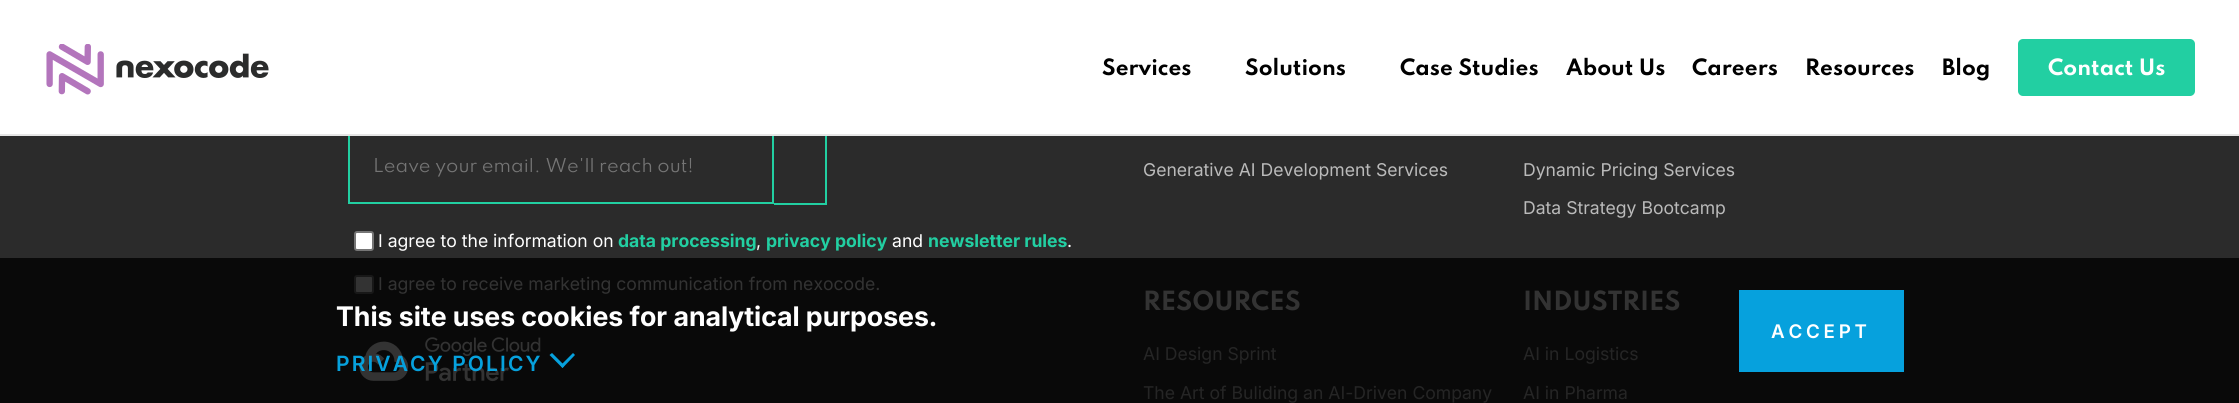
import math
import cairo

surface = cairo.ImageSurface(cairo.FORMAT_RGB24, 2239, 403)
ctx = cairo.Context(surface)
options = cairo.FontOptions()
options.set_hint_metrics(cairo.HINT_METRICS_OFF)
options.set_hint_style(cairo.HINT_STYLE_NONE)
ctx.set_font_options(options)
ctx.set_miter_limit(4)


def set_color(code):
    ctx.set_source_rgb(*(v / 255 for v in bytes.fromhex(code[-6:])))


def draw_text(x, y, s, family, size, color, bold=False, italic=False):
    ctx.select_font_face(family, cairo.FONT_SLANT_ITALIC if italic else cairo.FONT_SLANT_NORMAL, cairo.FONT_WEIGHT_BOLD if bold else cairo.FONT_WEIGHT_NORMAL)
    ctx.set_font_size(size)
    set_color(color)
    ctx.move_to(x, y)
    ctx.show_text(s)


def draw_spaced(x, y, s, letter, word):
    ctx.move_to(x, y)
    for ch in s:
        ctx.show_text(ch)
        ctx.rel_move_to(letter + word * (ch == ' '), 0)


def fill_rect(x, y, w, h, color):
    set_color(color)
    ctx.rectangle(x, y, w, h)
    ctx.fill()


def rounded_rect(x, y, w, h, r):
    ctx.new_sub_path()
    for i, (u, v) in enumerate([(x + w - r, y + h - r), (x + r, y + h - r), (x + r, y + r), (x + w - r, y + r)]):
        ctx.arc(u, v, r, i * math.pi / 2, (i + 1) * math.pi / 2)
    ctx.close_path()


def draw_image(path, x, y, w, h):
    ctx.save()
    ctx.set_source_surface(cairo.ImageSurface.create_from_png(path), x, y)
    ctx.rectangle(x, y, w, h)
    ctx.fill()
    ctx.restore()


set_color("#2b2b2b")
ctx.paint()
ctx.rectangle(349, 133, 424, 70)
set_color("#22cfa2")
ctx.stroke()
fill_rect(825, 132, 2, 72, "#22cfa2")
fill_rect(0, 0, 2239, 134, "#ffffff")
fill_rect(0, 134, 2239, 2, "#e5e5e5")
draw_image("assets/img1.png", 46, 44, 223, 51)
draw_text(1102, 75, "Services", "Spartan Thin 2 Thin", 20, "#000000")
draw_text(1245, 75, "Solutions", "Spartan Thin 2 Thin", 20, "#000000")
draw_text(1400, 75, "Case Studies", "Spartan Thin 2 Thin", 20, "#000000")
draw_text(1566, 75, "About Us", "Spartan Thin 2 Thin", 20, "#000000")
draw_text(1692, 75, "Careers", "Spartan Thin 2 Thin", 20, "#000000")
draw_text(1805, 75, "Resources", "Spartan Thin 2 Thin", 20, "#000000")
draw_text(1942, 75, "Blog", "Spartan Thin 2 Thin", 20, "#000000")
set_color("#22cfa2")
rounded_rect(2018, 39, 177, 57, 5)
ctx.fill()
draw_text(2048, 75, "Contact Us", "Spartan Thin 2 Thin", 20, "#ffffff")
fill_rect(0, 258, 2239, 145, "#090909")
ctx.save()
ctx.rectangle(374, 158, 375, 21)
ctx.clip()
draw_text(373, 172, "Leave your email. We'll reach out!", "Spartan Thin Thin", 17.6, "#757575")
ctx.restore()
fill_rect(774, 203, 53, 2, "#22cfa2")
set_color("#ffffff")
rounded_rect(355, 232, 18, 18, 2)
ctx.fill_preserve()
set_color("#767676")
ctx.stroke()
draw_text(378, 247, "I agree to the information on", "Inter", 17.6, "#ffffff")
draw_text(618, 247, "data processing", "Inter", 17.6, "#22cfa2", bold=True)
draw_text(756, 247, ",", "Inter", 17.6, "#ffffff")
draw_text(766, 247, "privacy policy", "Inter", 17.6, "#22cfa2", bold=True)
draw_text(892, 247, "and", "Inter", 17.6, "#ffffff")
draw_text(928, 247, "newsletter rules", "Inter", 17.6, "#22cfa2", bold=True)
draw_text(1067, 247, ".", "Inter", 17.6, "#ffffff")
set_color("#333333")
rounded_rect(355, 276, 18, 17, 2)
ctx.fill_preserve()
set_color("#181818")
ctx.stroke()
draw_text(378, 290, "I agree to receive marketing communication from nexocode.", "Inter", 17.6, "#333333")
draw_image("assets/img2.png", 359, 337, 182, 45)
draw_text(1143, 176, "Generative AI Development Services", "Inter", 17.6, "#bababa")
draw_text(1523, 176, "Dynamic Pricing Services", "Inter", 17.6, "#bababa")
draw_text(1523, 214, "Data Strategy Bootcamp", "Inter", 17.6, "#bababa")
draw_text(1143, 310, "RESOURCES", "Spartan Thin 2 Thin", 23.5, "#333333")
draw_text(1143, 360, "AI Design Sprint", "Inter", 17.6, "#252525")
draw_text(1143, 399, "The Art of Buliding an AI-Driven Company", "Inter", 17.6, "#252525")
draw_text(1523, 310, "INDUSTRIES", "Spartan Thin 2 Thin", 23.5, "#333333")
draw_text(1523, 360, "AI in Logistics", "Inter", 17.6, "#252525")
draw_text(1523, 399, "AI in Pharma", "Inter", 17.6, "#252525")
draw_text(336, 326, "This site uses cookies for analytical purposes.", "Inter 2", 27, "#ffffff", bold=True)
fill_rect(1739, 290, 165, 82, "#06a1dd")
ctx.select_font_face("Inter SemiBold")
ctx.set_font_size(18.75)
set_color("#ffffff")
draw_spaced(1771, 338, "ACCEPT", 3.75, 0)
ctx.set_font_size(21)
set_color("#06a1dd")
draw_spaced(336, 371, "PRIVACY POLICY", 2.1, 0)
ctx.new_path()
ctx.move_to(573, 353)
ctx.line_to(575, 355)
ctx.line_to(562.5, 368)
ctx.line_to(560.5, 365.5)
ctx.close_path()
ctx.fill()
ctx.new_path()
ctx.move_to(552, 353)
ctx.line_to(564.5, 365.5)
ctx.line_to(562.5, 368)
ctx.line_to(549.5, 355)
ctx.close_path()
ctx.fill()
surface.write_to_png("output.png")
